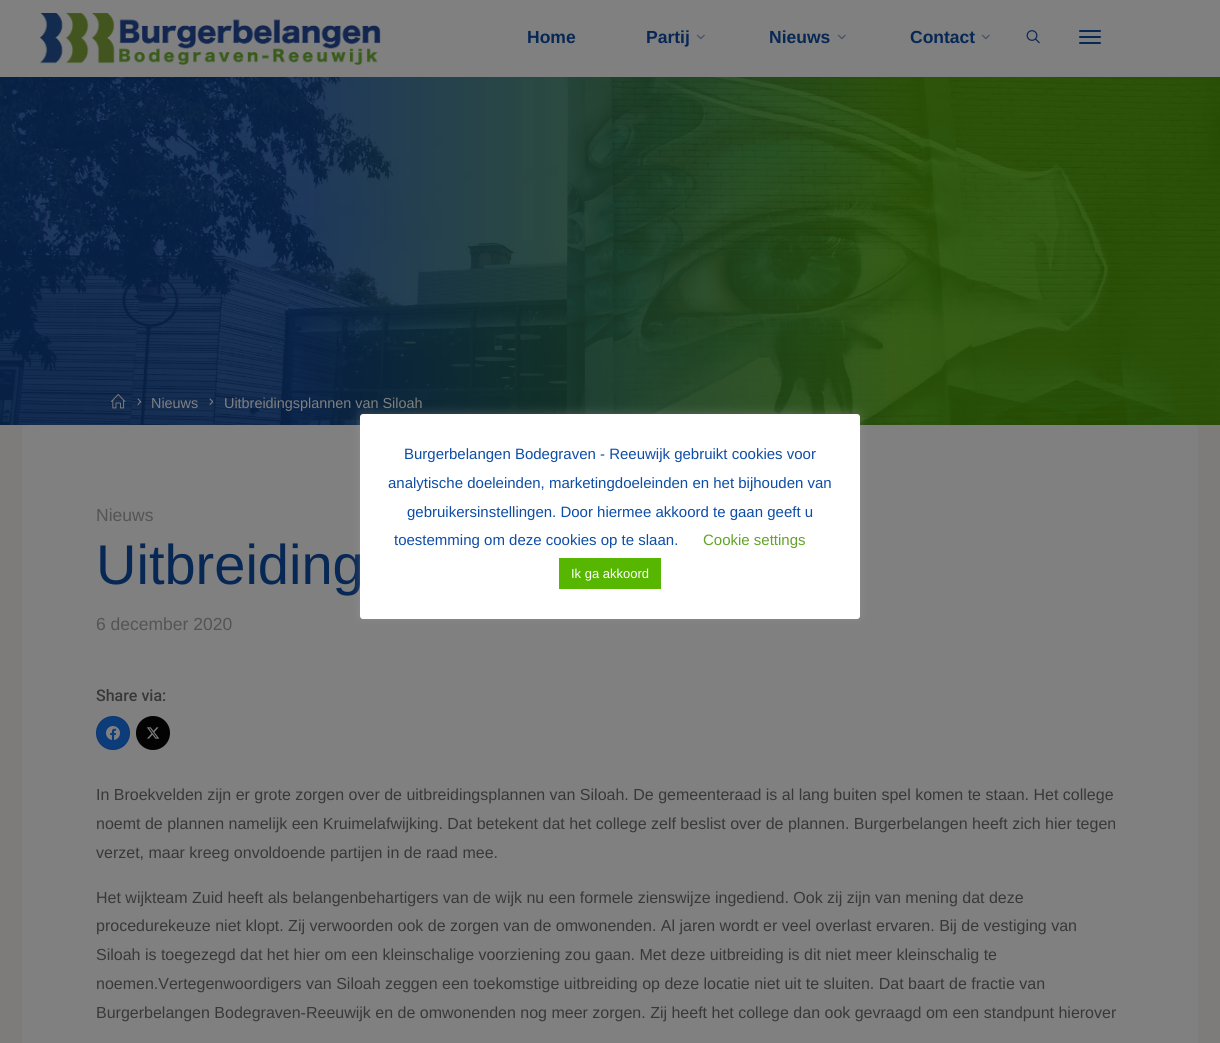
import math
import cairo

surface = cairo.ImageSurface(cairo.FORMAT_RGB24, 1220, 1043)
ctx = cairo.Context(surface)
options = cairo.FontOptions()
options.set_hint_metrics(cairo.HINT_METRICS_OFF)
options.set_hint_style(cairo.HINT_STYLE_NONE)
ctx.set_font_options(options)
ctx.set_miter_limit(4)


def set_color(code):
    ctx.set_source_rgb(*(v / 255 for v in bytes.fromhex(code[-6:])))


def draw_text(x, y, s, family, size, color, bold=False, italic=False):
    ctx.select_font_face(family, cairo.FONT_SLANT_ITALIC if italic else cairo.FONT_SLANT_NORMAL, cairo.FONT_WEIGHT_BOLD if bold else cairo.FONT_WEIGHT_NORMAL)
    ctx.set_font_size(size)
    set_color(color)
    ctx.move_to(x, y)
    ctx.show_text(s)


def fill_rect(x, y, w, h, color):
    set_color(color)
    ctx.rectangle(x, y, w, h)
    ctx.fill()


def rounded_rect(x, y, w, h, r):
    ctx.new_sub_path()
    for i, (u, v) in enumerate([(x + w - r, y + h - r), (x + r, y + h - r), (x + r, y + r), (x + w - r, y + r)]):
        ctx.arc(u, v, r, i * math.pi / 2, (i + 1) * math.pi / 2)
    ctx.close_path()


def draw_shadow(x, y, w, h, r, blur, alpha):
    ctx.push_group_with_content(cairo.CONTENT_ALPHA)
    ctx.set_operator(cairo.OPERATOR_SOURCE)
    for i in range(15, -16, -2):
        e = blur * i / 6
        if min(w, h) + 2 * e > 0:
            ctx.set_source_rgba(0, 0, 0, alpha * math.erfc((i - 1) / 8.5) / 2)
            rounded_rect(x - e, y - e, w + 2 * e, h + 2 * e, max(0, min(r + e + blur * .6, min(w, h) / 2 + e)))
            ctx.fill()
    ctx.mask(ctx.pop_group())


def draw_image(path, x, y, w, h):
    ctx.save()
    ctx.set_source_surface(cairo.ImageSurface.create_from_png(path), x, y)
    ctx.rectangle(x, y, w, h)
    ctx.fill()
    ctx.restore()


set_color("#7d7c7b")
ctx.paint()
fill_rect(0, 0, 1220, 77, "#808080")
draw_image("assets/img1.png", 40, 13, 341, 52)
draw_text(527, 43, "Home", "Liberation Sans", 17.5, "#072754", bold=True)
draw_text(646, 43, "Partij", "Liberation Sans", 17.5, "#072754", bold=True)
draw_image("assets/img2.png", 696, 34, 9, 6)
draw_text(769, 43, "Nieuws", "Liberation Sans", 17.5, "#072754", bold=True)
draw_image("assets/img2.png", 837, 34, 9, 6)
draw_text(910, 43, "Contact", "Liberation Sans", 17.5, "#072754", bold=True)
draw_image("assets/img2.png", 981, 34, 9, 6)
draw_image("assets/img3.png", 1026, 30, 14, 14)
rounded_rect(1079, 36, 22, 2, 1)
ctx.fill()
rounded_rect(1079, 30, 22, 2, 1)
ctx.fill()
rounded_rect(1079, 42, 22, 2, 1)
ctx.fill()
draw_image("assets/img4.png", 0, 77, 1220, 348)
draw_image("assets/img5.png", 111, 394, 15, 15)
draw_image("assets/img6.png", 137, 398, 5, 7)
draw_text(151, 408, "Nieuws", "Liberation Sans", 14.4, "#808080")
draw_image("assets/img7.png", 209, 398, 5, 7)
draw_text(224, 408, "Uitbreidingsplannen van Siloah", "Liberation Sans", 14.4, "#808080")
rounded_rect(22, 425, 1176, 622, 4)
ctx.fill()
draw_text(96, 521, "Nieuws", "Liberation Sans", 17.5, "#545454")
draw_text(96, 584, "Uitbreiding", "Liberation Sans", 56, "#072754")
draw_text(96, 630, "6 december 2020", "Liberation Sans", 17.5, "#545454")
draw_text(96, 701, "Share via:", "Roboto Medium", 16, "#383838")
set_color("#0c3c79")
ctx.new_path()
ctx.arc(113, 733, 17, 0, 2 * math.pi)
ctx.fill()
ctx.arc(113, 733, 16.5, 0, 2 * math.pi)
ctx.set_source_rgba(0, 0, 0, 0.1)
ctx.set_line_width(1)
ctx.stroke()
draw_image("assets/img8.png", 106, 726, 14, 14)
set_color("#030303")
ctx.arc(153, 733, 17, 0, 2 * math.pi)
ctx.fill()
ctx.arc(153, 733, 16.5, 0, 2 * math.pi)
ctx.set_source_rgba(0, 0, 0, 0.1)
ctx.stroke()
draw_image("assets/img9.png", 146, 727, 14, 12)
draw_text(96, 800, "In Broekvelden zijn er grote zorgen over de uitbreidingsplannen van Siloah. De gemeenteraad is al lang buiten spel komen te staan. Het college", "Liberation Sans", 16, "#383838")
draw_text(96, 829, "noemt de plannen namelijk een Kruimelafwijking. Dat betekent dat het college zelf beslist over de plannen. Burgerbelangen heeft zich hier tegen", "Liberation Sans", 16, "#383838")
draw_text(96, 858, "verzet, maar kreeg onvoldoende partijen in de raad mee.", "Liberation Sans", 16, "#383838")
draw_text(96, 903, "Het wijkteam Zuid heeft als belangenbehartigers van de wijk nu een formele zienswijze ingediend. Ook zij zijn van mening dat deze", "Liberation Sans", 16, "#383838")
draw_text(96, 931, "procedurekeuze niet klopt. Zij verwoorden ook de zorgen van de omwonenden. Al jaren wordt er veel overlast ervaren. Bij de vestiging van", "Liberation Sans", 16, "#383838")
draw_text(96, 960, "Siloah is toegezegd dat het hier om een kleinschalige voorziening zou gaan. Met deze uitbreiding is dit niet meer kleinschalig te", "Liberation Sans", 16, "#383838")
draw_text(96, 989, "noemen.Vertegenwoordigers van Siloah zeggen een toekomstige uitbreiding op deze locatie niet uit te sluiten. Dat baart de fractie van", "Liberation Sans", 16, "#383838")
draw_text(96, 1018, "Burgerbelangen Bodegraven-Reeuwijk en de omwonenden nog meer zorgen. Zij heeft het college dan ook gevraagd om een standpunt hierover", "Liberation Sans", 16, "#383838")
set_color("#acabab")
draw_shadow(360, 413, 500, 205, 3, 5, 0.3)
set_color("#ffffff")
rounded_rect(360, 414, 500, 205, 3)
ctx.fill()
draw_text(404, 459, "Burgerbelangen Bodegraven - Reeuwijk gebruikt cookies voor", "Liberation Sans", 15, "#0e4da7")
draw_text(388, 488, "analytische doeleinden, marketingdoeleinden en het bijhouden van", "Liberation Sans", 15, "#0e4da7")
draw_text(407, 517, "gebruikersinstellingen. Door hiermee akkoord te gaan geeft u", "Liberation Sans", 15, "#0e4da7")
draw_text(394, 545, "toestemming om deze cookies op te slaan.", "Liberation Sans", 15, "#0e4da7")
draw_text(703, 545, "Cookie settings", "Liberation Sans", 15, "#62a329")
fill_rect(559, 558, 102, 31, "#57b600")
draw_text(571, 578, "Ik ga akkoord", "Liberation Sans", 13, "#ffffff")
surface.write_to_png("output.png")
